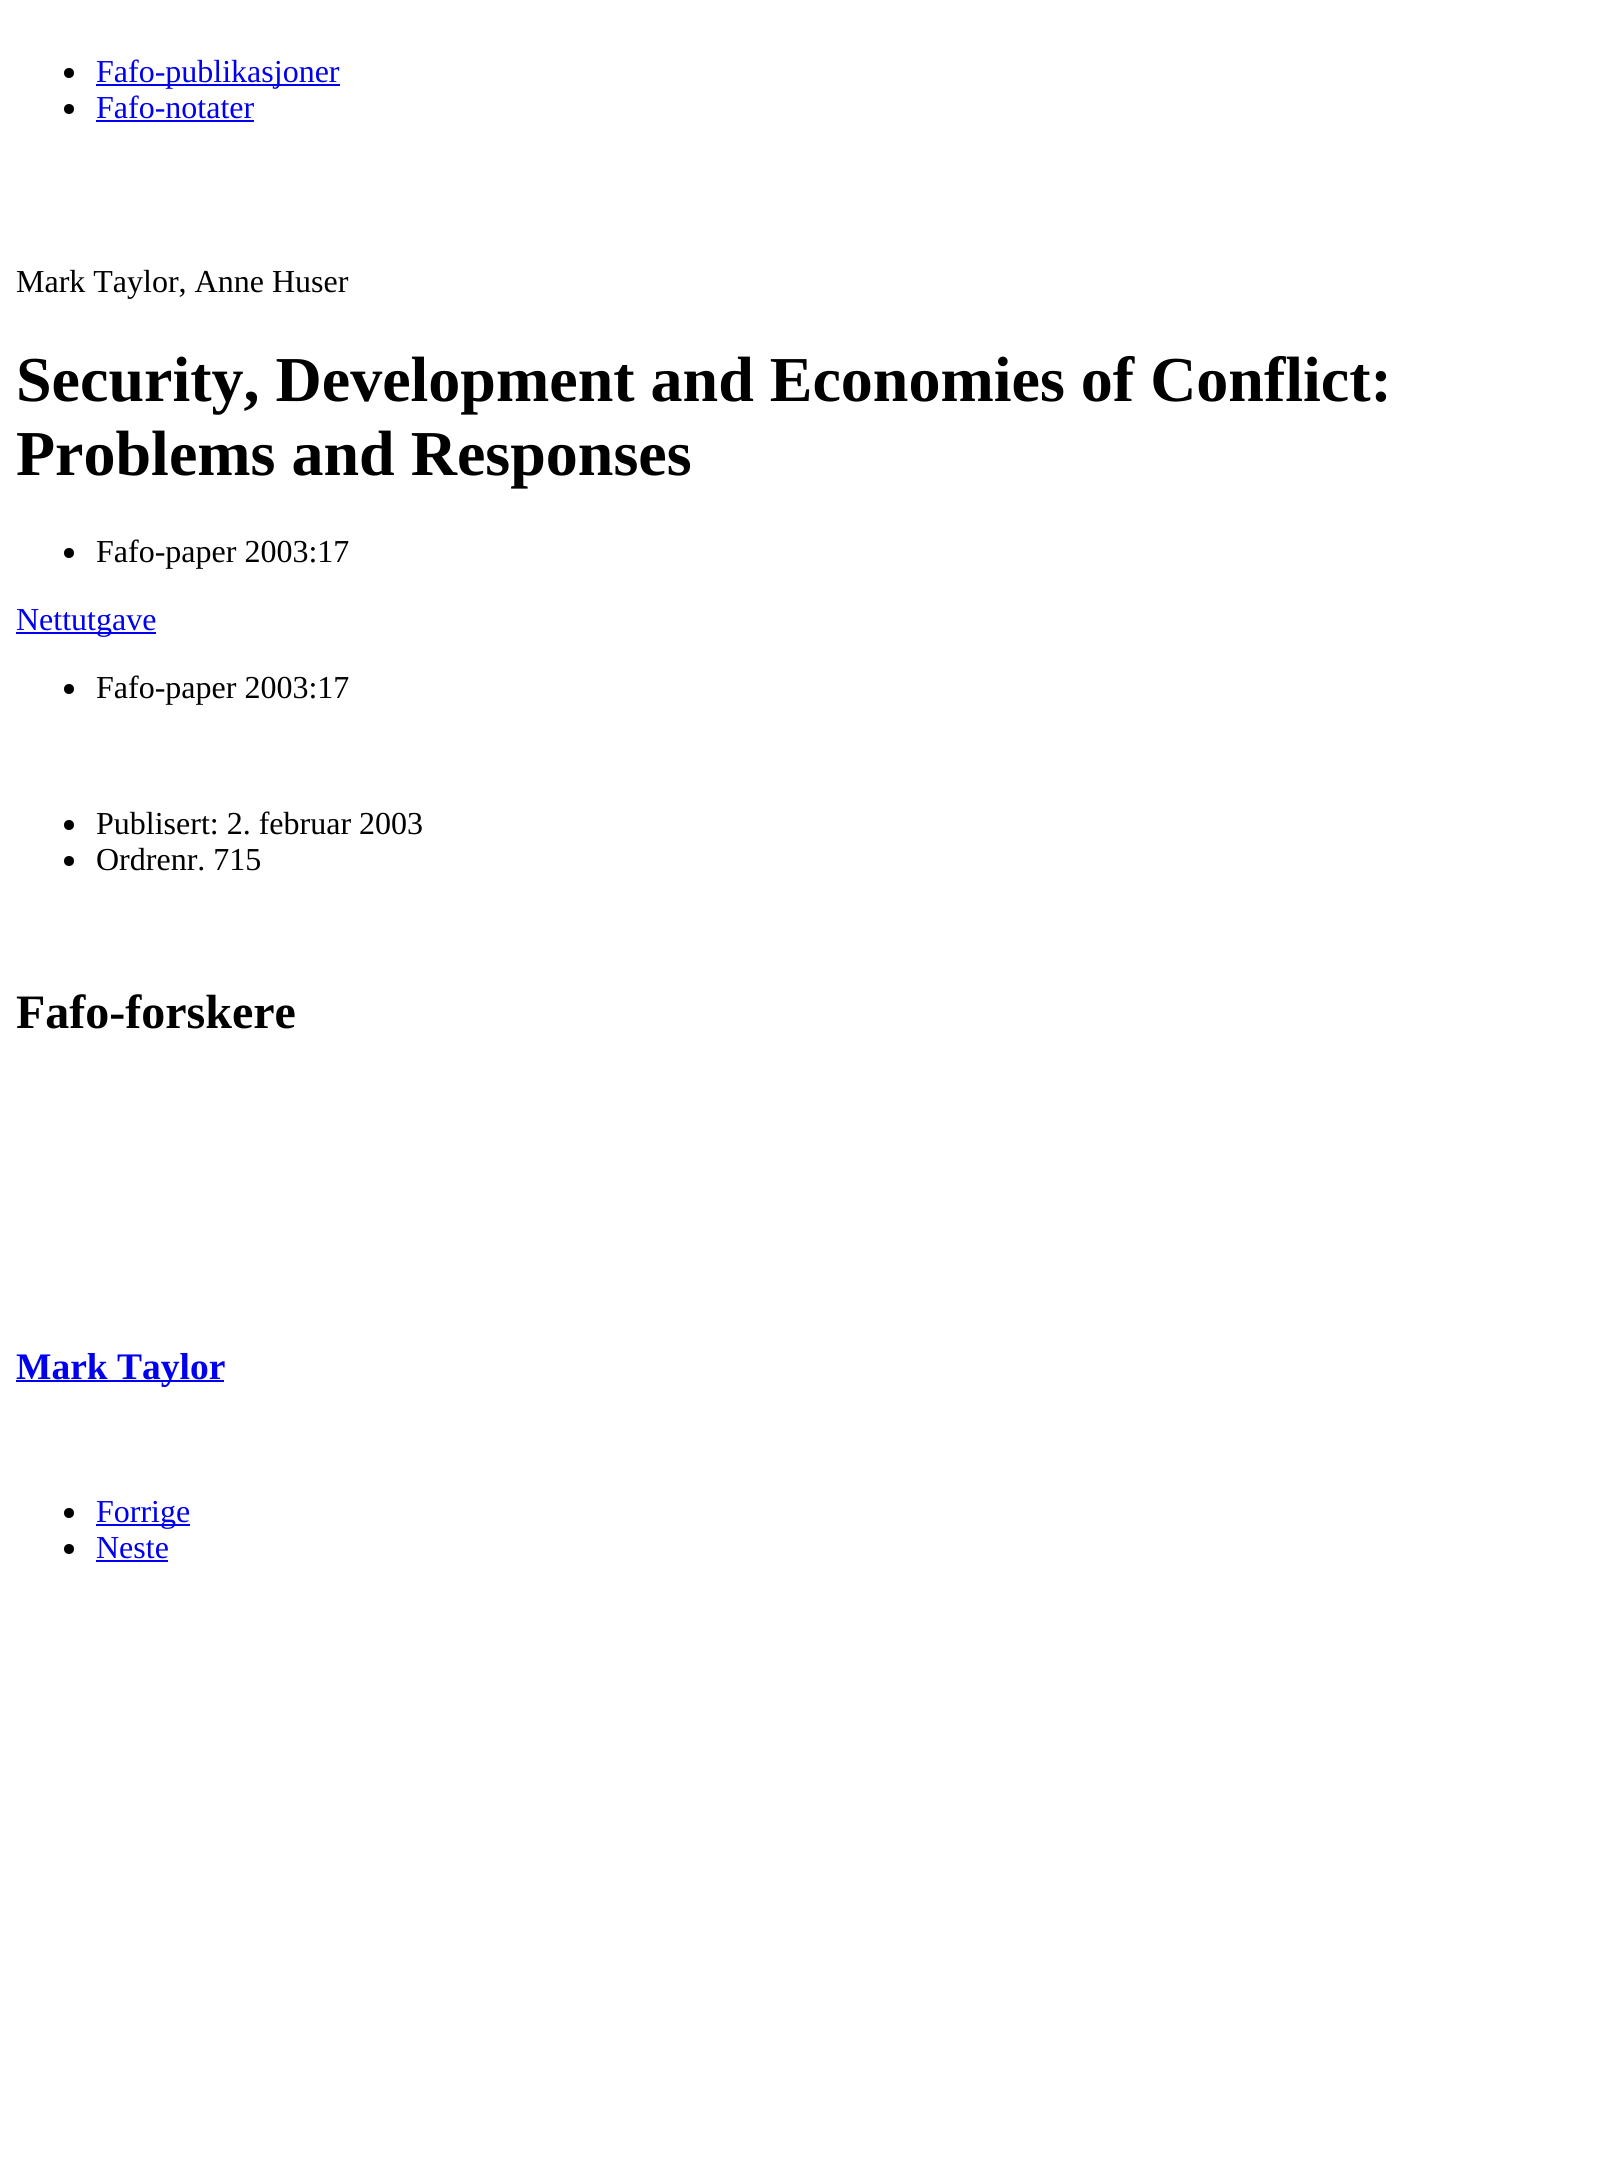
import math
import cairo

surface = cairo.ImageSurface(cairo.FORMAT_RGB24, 1608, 2159)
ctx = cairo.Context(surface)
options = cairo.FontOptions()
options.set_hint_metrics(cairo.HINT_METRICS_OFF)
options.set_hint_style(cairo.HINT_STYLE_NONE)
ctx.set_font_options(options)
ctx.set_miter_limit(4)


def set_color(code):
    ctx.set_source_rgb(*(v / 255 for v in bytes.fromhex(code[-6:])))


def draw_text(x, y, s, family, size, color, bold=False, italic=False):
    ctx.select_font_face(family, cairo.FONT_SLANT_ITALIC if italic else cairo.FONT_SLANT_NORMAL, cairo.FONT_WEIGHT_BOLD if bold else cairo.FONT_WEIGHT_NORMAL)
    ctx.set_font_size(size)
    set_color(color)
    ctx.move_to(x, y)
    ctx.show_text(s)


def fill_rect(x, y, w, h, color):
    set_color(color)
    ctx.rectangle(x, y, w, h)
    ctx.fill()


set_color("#ffffff")
ctx.paint()
set_color("#000000")
ctx.arc(69, 73, 5, 0, 2 * math.pi)
ctx.fill()
fill_rect(96, 84, 244, 2, "#0000ee")
draw_text(96, 82, "Fafo-publikasjoner", "Liberation Serif", 32, "#0000ee")
set_color("#000000")
ctx.new_path()
ctx.arc(69, 109, 5, 0, 2 * math.pi)
ctx.fill()
draw_text(96, 118, "Fafo-notater", "Liberation Serif", 32, "#0000ee")
fill_rect(96, 120, 158, 2, "#0000ee")
draw_text(16, 292, "Mark Taylor, Anne Huser", "Liberation Serif", 32, "#000000")
draw_text(16, 401, "Security, Development and Economies of Conflict:", "Liberation Serif", 64, "#000000", bold=True)
draw_text(16, 475, "Problems and Responses", "Liberation Serif", 64, "#000000", bold=True)
ctx.new_path()
ctx.arc(69, 553, 5, 0, 2 * math.pi)
ctx.fill()
draw_text(96, 562, "Fafo-paper 2003:17", "Liberation Serif", 32, "#000000")
fill_rect(16, 632, 140, 2, "#0000ee")
draw_text(16, 630, "Nettutgave", "Liberation Serif", 32, "#0000ee")
set_color("#000000")
ctx.new_path()
ctx.arc(69, 689, 5, 0, 2 * math.pi)
ctx.fill()
draw_text(96, 698, "Fafo-paper 2003:17", "Liberation Serif", 32, "#000000")
ctx.new_path()
ctx.arc(69, 825, 5, 0, 2 * math.pi)
ctx.fill()
draw_text(96, 834, "Publisert: 2. februar 2003", "Liberation Serif", 32, "#000000")
ctx.new_path()
ctx.arc(69, 861, 5, 0, 2 * math.pi)
ctx.fill()
draw_text(96, 870, "Ordrenr. 715", "Liberation Serif", 32, "#000000")
draw_text(16, 1028, "Fafo-forskere", "Liberation Serif", 48, "#000000", bold=True)
fill_rect(16, 1380, 208, 2, "#0000ee")
draw_text(16, 1379, "Mark Taylor", "Liberation Serif", 37.5, "#0000ee", bold=True)
set_color("#000000")
ctx.new_path()
ctx.arc(69, 1513, 5, 0, 2 * math.pi)
ctx.fill()
fill_rect(96, 1524, 94, 2, "#0000ee")
draw_text(96, 1522, "Forrige", "Liberation Serif", 32, "#0000ee")
set_color("#000000")
ctx.new_path()
ctx.arc(69, 1549, 5, 0, 2 * math.pi)
ctx.fill()
draw_text(96, 1558, "Neste", "Liberation Serif", 32, "#0000ee")
fill_rect(96, 1560, 72, 2, "#0000ee")
surface.write_to_png("output.png")
